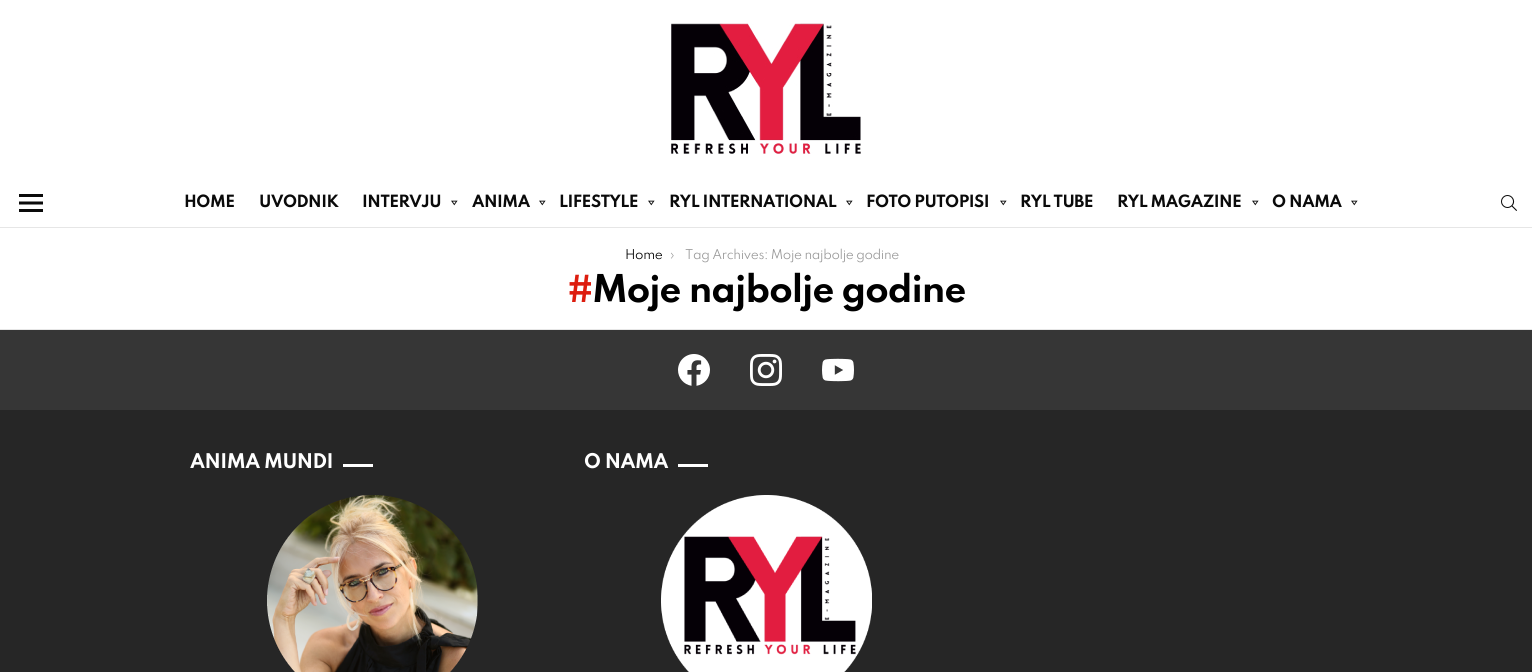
import math
import cairo

surface = cairo.ImageSurface(cairo.FORMAT_RGB24, 1532, 672)
ctx = cairo.Context(surface)
options = cairo.FontOptions()
options.set_hint_metrics(cairo.HINT_METRICS_OFF)
options.set_hint_style(cairo.HINT_STYLE_NONE)
ctx.set_font_options(options)
ctx.set_miter_limit(4)


def set_color(code):
    ctx.set_source_rgb(*(v / 255 for v in bytes.fromhex(code[-6:])))


def draw_spaced(x, y, s, letter, word):
    ctx.move_to(x, y)
    for ch in s:
        ctx.show_text(ch)
        ctx.rel_move_to(letter + word * (ch == ' '), 0)


def fill_rect(x, y, w, h, color):
    set_color(color)
    ctx.rectangle(x, y, w, h)
    ctx.fill()


def draw_image(path, x, y, w, h):
    ctx.save()
    ctx.set_source_surface(cairo.ImageSurface.create_from_png(path), x, y)
    ctx.rectangle(x, y, w, h)
    ctx.fill()
    ctx.restore()


set_color("#ffffff")
ctx.paint()
draw_image("assets/img1.png", 671, 23, 190, 131)
draw_image("assets/img2.png", 19, 194, 24, 18)
ctx.select_font_face("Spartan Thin", cairo.FONT_SLANT_NORMAL, cairo.FONT_WEIGHT_BOLD)
ctx.set_font_size(15)
set_color("#0a0a0a")
draw_spaced(184, 207, "HOME", -0.5, 0)
draw_spaced(259, 207, "UVODNIK", -0.5, 0)
draw_spaced(362, 207, "INTERVJU", -0.5, 0)
draw_image("assets/img3.png", 451, 200, 7, 6)
draw_spaced(472, 207, "ANIMA", -0.5, 0)
draw_image("assets/img3.png", 539, 200, 7, 6)
draw_spaced(559, 207, "LIFESTYLE", -0.5, 0)
draw_image("assets/img3.png", 648, 200, 7, 6)
draw_spaced(669, 207, "RYL INTERNATIONAL", -0.5, 0)
draw_image("assets/img3.png", 846, 200, 7, 6)
draw_spaced(866, 207, "FOTO PUTOPISI", -0.5, 0)
draw_image("assets/img3.png", 1000, 200, 7, 6)
draw_spaced(1020, 207, "RYL TUBE", -0.5, 0)
draw_spaced(1117, 207, "RYL MAGAZINE", -0.5, 0)
draw_image("assets/img3.png", 1252, 200, 7, 6)
draw_spaced(1272, 207, "O NAMA", -0.5, 0)
draw_image("assets/img3.png", 1351, 200, 7, 6)
draw_image("assets/img4.png", 1501, 195, 16, 16)
fill_rect(0, 227, 1532, 1, "#e6e6e6")
ctx.select_font_face("Spartan Thin")
ctx.set_font_size(12)
set_color("#000000")
draw_spaced(625, 259, "Home", -0.35, 0)
set_color("#999999")
draw_spaced(670, 259, "›", -0.35, 0)
draw_spaced(685, 259, "Tag Archives: Moje najbolje godine", -0.35, 0)
ctx.select_font_face("Spartan Thin", cairo.FONT_SLANT_NORMAL, cairo.FONT_WEIGHT_BOLD)
ctx.set_font_size(34)
set_color("#dd1d0f")
draw_spaced(567, 302, "#", -1, 0)
set_color("#000000")
draw_spaced(592, 302, "Moje najbolje godine", -1, 0)
fill_rect(0, 329, 1532, 1, "#e6e6e6")
fill_rect(0, 330, 1532, 80, "#363636")
draw_image("assets/img5.png", 678, 354, 32, 32)
draw_image("assets/img6.png", 750, 354, 32, 32)
draw_image("assets/img7.png", 822, 358, 32, 24)
fill_rect(0, 410, 1532, 262, "#262626")
ctx.set_font_size(18)
set_color("#ffffff")
draw_spaced(190, 468, "ANIMA MUNDI", -0.5, 0)
fill_rect(343, 464, 30, 3, "#ffffff")
draw_image("assets/img8.png", 267, 495, 211, 177)
draw_spaced(584, 468, "O NAMA", -0.5, 0)
fill_rect(678, 464, 30, 3, "#ffffff")
draw_image("assets/img9.png", 661, 495, 211, 177)
surface.write_to_png("output.png")
